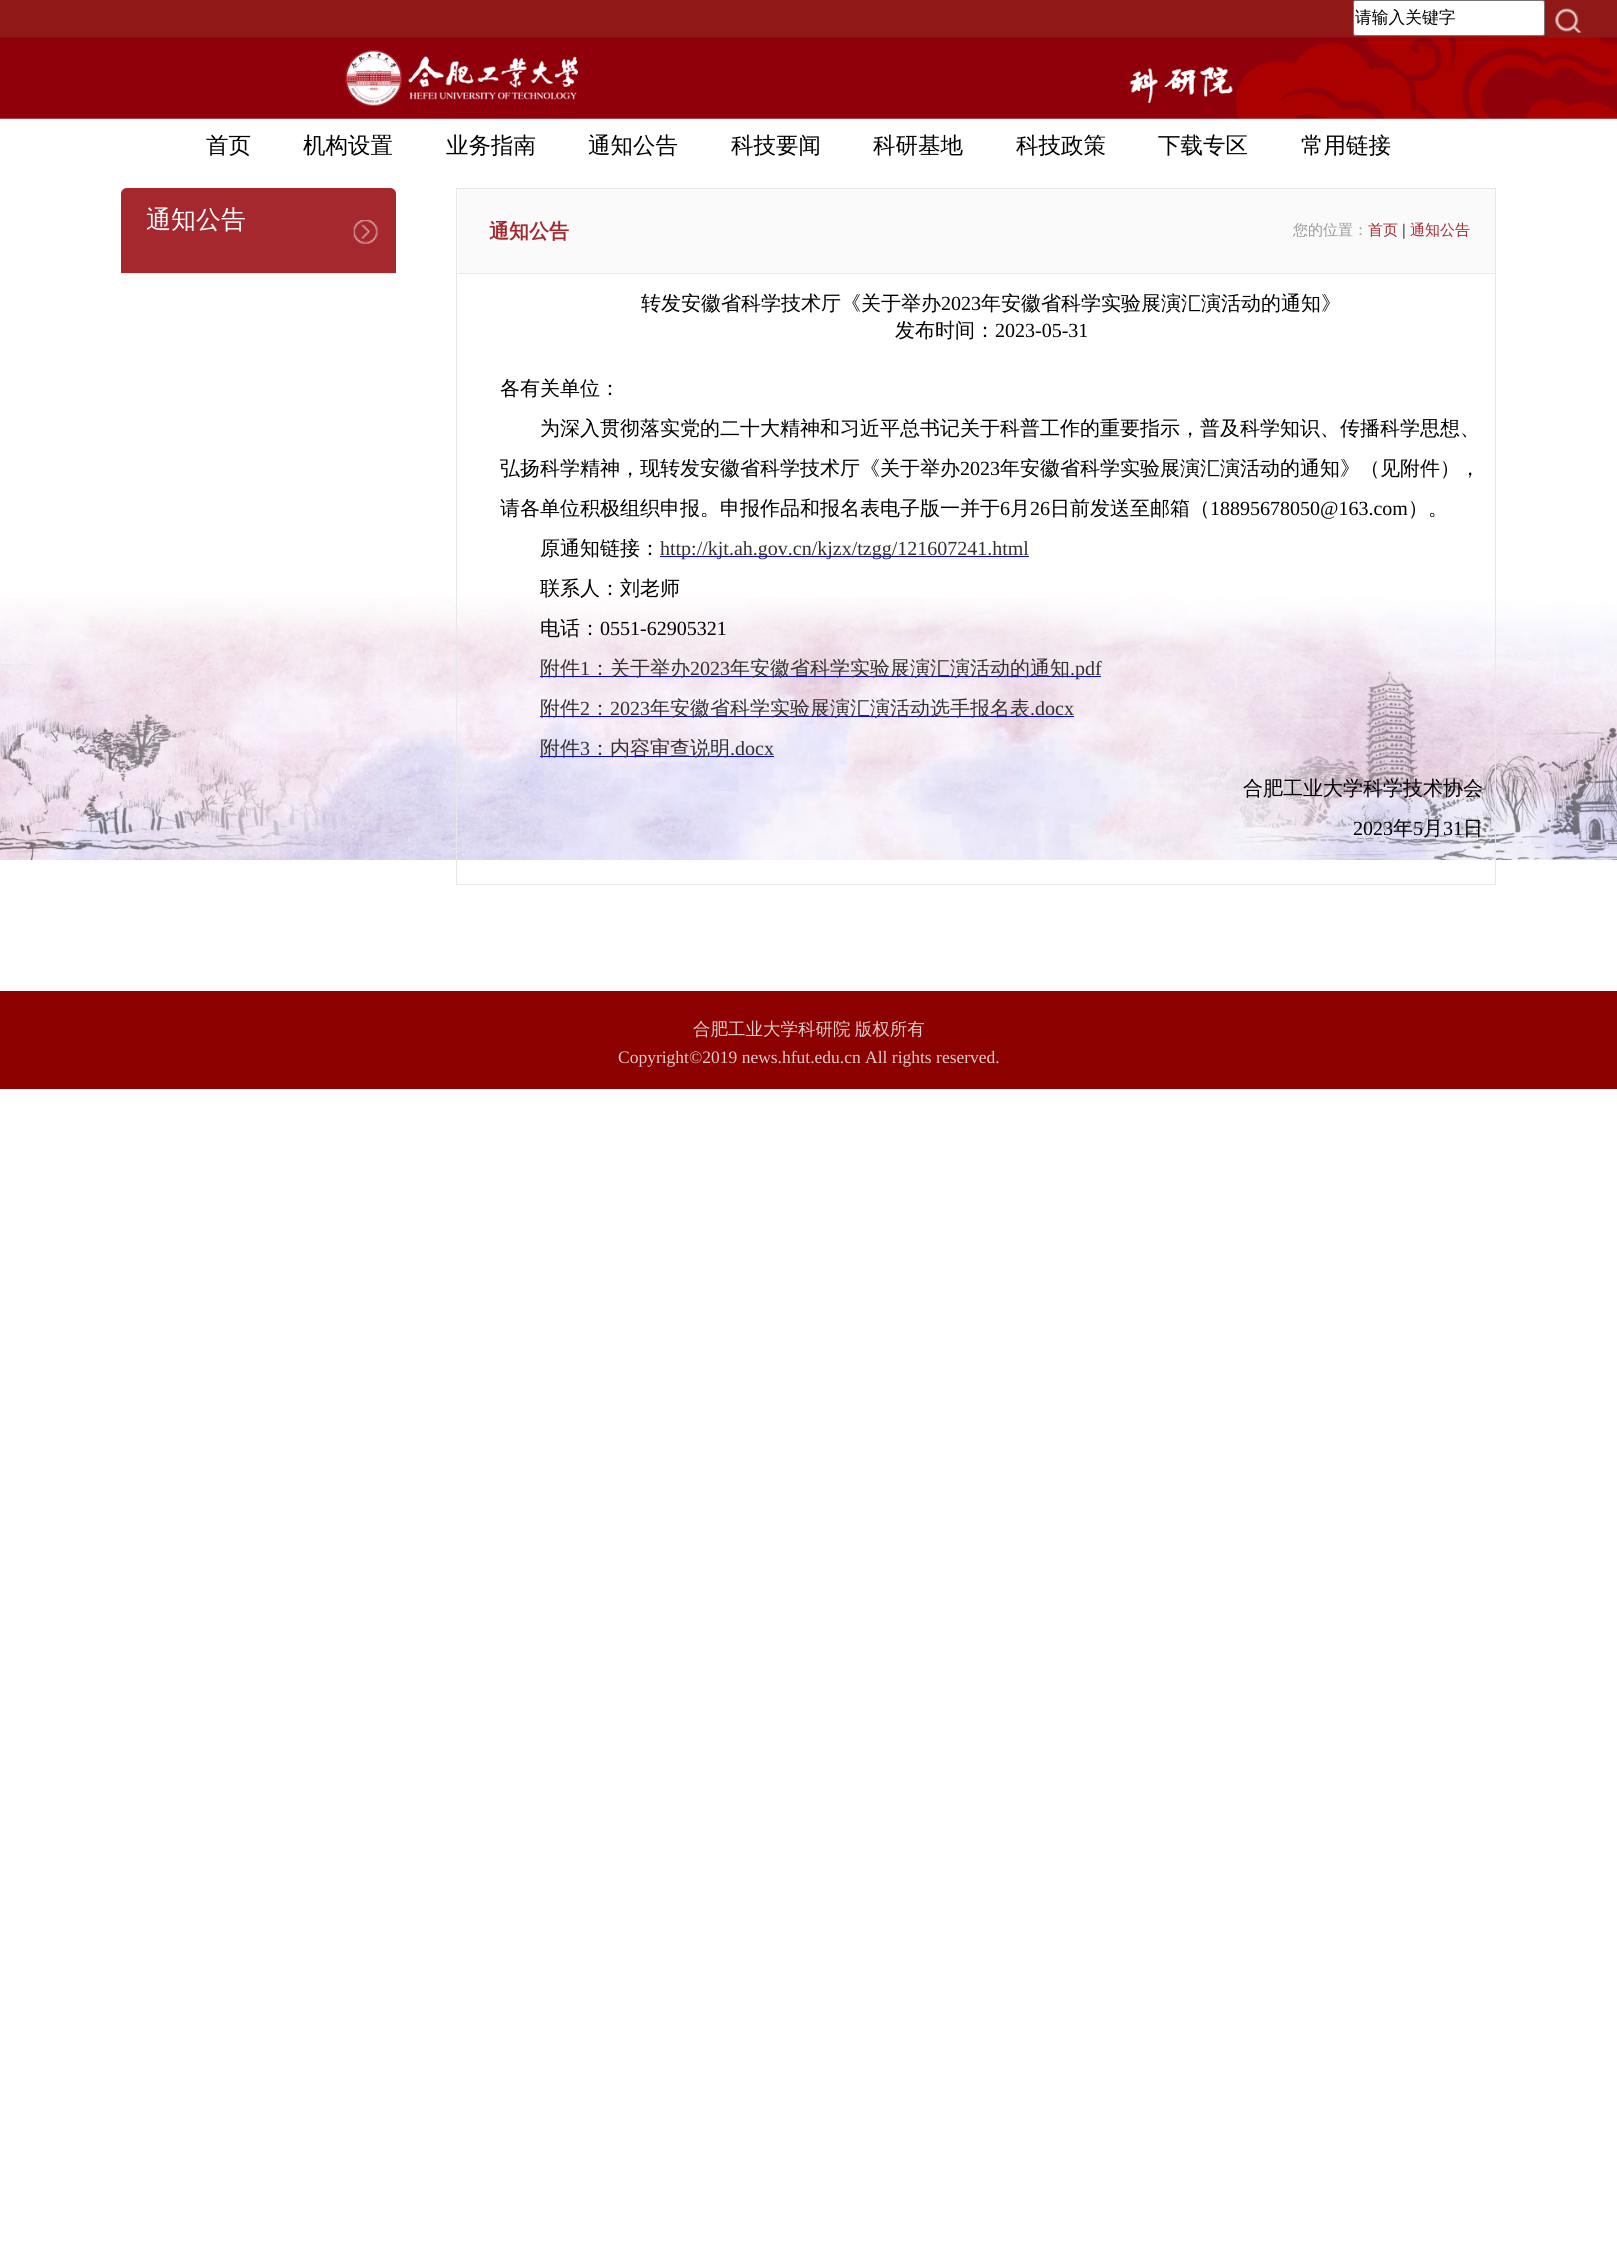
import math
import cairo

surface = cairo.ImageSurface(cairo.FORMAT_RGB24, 1617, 2249)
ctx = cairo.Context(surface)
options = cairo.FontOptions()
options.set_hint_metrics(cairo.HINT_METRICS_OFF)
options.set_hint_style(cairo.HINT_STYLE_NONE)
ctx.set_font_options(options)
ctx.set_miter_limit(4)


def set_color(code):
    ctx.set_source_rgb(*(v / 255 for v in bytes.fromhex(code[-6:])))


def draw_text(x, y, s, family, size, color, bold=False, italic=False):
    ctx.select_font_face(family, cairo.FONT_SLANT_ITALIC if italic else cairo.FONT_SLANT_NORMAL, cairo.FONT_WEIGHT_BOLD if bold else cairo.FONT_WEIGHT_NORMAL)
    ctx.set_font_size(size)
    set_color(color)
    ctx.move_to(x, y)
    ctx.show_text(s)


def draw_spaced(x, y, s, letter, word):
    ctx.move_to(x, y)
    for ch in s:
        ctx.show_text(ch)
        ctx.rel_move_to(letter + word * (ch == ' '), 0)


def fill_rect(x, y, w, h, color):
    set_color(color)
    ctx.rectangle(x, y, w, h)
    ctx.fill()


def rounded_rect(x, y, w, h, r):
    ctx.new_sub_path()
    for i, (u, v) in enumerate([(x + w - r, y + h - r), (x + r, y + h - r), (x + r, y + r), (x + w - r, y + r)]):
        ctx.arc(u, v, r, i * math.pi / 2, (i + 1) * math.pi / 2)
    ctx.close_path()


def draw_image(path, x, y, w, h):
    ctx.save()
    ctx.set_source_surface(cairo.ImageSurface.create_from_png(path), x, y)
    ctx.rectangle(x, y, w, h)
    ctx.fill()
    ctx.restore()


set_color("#ffffff")
ctx.paint()
fill_rect(0, 0, 1617, 38, "#901918")
set_color("#ffffff")
rounded_rect(1353.5, 0.5, 191, 35, 2)
ctx.fill_preserve()
set_color("#767676")
ctx.set_line_width(1)
ctx.stroke()
draw_text(1355, 23, "请输入关键字", "WenQuanYi Zen Hei Medium", 16.75, "#000000")
draw_image("assets/img1.png", 1555, 8, 27, 25)
draw_image("assets/img2.png", 0, 37, 1617, 82)
draw_text(206, 153, "首页", "WenQuanYi Zen Hei Medium", 22.5, "#000000")
draw_text(303, 153, "机构设置", "WenQuanYi Zen Hei Medium", 22.5, "#000000")
draw_text(446, 153, "业务指南", "WenQuanYi Zen Hei Medium", 22.5, "#000000")
draw_text(588, 153, "通知公告", "WenQuanYi Zen Hei Medium", 22.5, "#000000")
draw_text(731, 153, "科技要闻", "WenQuanYi Zen Hei Medium", 22.5, "#000000")
draw_text(873, 153, "科研基地", "WenQuanYi Zen Hei Medium", 22.5, "#000000")
draw_text(1016, 153, "科技政策", "WenQuanYi Zen Hei Medium", 22.5, "#000000")
draw_text(1158, 153, "下载专区", "WenQuanYi Zen Hei Medium", 22.5, "#000000")
draw_text(1301, 153, "常用链接", "WenQuanYi Zen Hei Medium", 22.5, "#000000")
set_color("#a6282f")
ctx.new_path()
ctx.move_to(127, 188)
ctx.line_to(390, 188)
ctx.curve_to(393.5, 188, 396, 190.5, 396, 194)
ctx.line_to(396, 273)
ctx.line_to(121, 273)
ctx.line_to(121, 194)
ctx.curve_to(121, 190.5, 123.5, 188, 127, 188)
ctx.close_path()
ctx.fill()
draw_text(146, 228, "通知公告", "WenQuanYi Zen Hei Medium", 25, "#ffffff")
draw_image("assets/img3.png", 353, 220, 25, 24)
fill_rect(121, 273, 275, 1, "#e8e8e8")
draw_image("assets/img5.png", 0, 598, 1617, 262)
ctx.rectangle(456.5, 188.5, 1039, 696)
ctx.stroke()
fill_rect(458, 189, 1037, 84, "#fafafa")
fill_rect(458, 273, 1037, 1, "#e8e8e8")
draw_text(489, 238, "通知公告", "WenQuanYi Zen Hei", 20, "#a6282f", bold=True)
draw_text(1293, 235, "您的位置：", "WenQuanYi Zen Hei Medium", 15, "#999999")
draw_text(1368, 235, "首页", "WenQuanYi Zen Hei Medium", 15, "#a6282f")
draw_image("assets/img4.png", 1403, 223, 2, 16)
draw_text(1410, 235, "通知公告", "WenQuanYi Zen Hei Medium", 15, "#a6282f")
draw_text(641, 310, "转发安徽省科学技术厅《关于举办", "WenQuanYi Zen Hei Medium", 20, "#000000")
draw_text(941, 310, "2023", "Liberation Serif", 20, "#000000")
draw_text(981, 310, "年安徽省科学实验展演汇演活动的通知》", "WenQuanYi Zen Hei Medium", 20, "#000000")
draw_text(895, 337, "发布时间：", "WenQuanYi Zen Hei Medium", 20, "#000000")
draw_text(995, 337, "2023-05-31", "Liberation Serif", 20, "#000000")
draw_text(500, 395, "各有关单位：", "WenQuanYi Zen Hei Medium", 20, "#000000")
draw_text(540, 435, "为深入贯彻落实党的二十大精神和习近平总书记关于科普工作的重要指示，普及科学知识、传播科学思想、", "WenQuanYi Zen Hei Medium", 20, "#000000")
draw_text(500, 475, "弘扬科学精神，现转发安徽省科学技术厅《关于举办", "WenQuanYi Zen Hei Medium", 20, "#000000")
draw_text(960, 475, "2023", "Liberation Serif", 20, "#000000")
draw_text(1000, 475, "年安徽省科学实验展演汇演活动的通知》（见附件），", "WenQuanYi Zen Hei Medium", 20, "#000000")
draw_text(500, 515, "请各单位积极组织申报。申报作品和报名表电子版一并于", "WenQuanYi Zen Hei Medium", 20, "#000000")
draw_text(1000, 515, "6", "Liberation Serif", 20, "#000000")
draw_text(1010, 515, "月", "WenQuanYi Zen Hei Medium", 20, "#000000")
draw_text(1030, 515, "26", "Liberation Serif", 20, "#000000")
draw_text(1050, 515, "日前发送至邮箱（", "WenQuanYi Zen Hei Medium", 20, "#000000")
draw_text(1210, 515, "18895678050@163.com", "Liberation Serif", 20, "#000000")
draw_text(1408, 515, "）。", "WenQuanYi Zen Hei Medium", 20, "#000000")
draw_text(540, 555, "原通知链接：", "WenQuanYi Zen Hei Medium", 20, "#000000")
fill_rect(660, 556, 369, 1, "#0000ee")
draw_text(660, 555, "http://kjt.ah.gov.cn/kjzx/tzgg/121607241.html", "Liberation Serif", 20, "#313131")
draw_text(540, 595, "联系人：刘老师", "WenQuanYi Zen Hei Medium", 20, "#000000")
draw_text(540, 635, "电话：", "WenQuanYi Zen Hei Medium", 20, "#000000")
draw_text(600, 635, "0551-62905321", "Liberation Serif", 20, "#000000")
fill_rect(540, 676, 561, 1, "#0000ee")
draw_text(540, 675, "附件", "WenQuanYi Zen Hei Medium", 20, "#313131")
draw_text(580, 675, "1", "Liberation Serif", 20, "#313131")
draw_text(590, 675, "：关于举办", "WenQuanYi Zen Hei Medium", 20, "#313131")
draw_text(690, 675, "2023", "Liberation Serif", 20, "#313131")
draw_text(730, 675, "年安徽省科学实验展演汇演活动的通知", "WenQuanYi Zen Hei Medium", 20, "#313131")
draw_text(1070, 675, ".pdf", "Liberation Serif", 20, "#313131")
fill_rect(540, 716, 534, 1, "#0000ee")
draw_text(540, 715, "附件", "WenQuanYi Zen Hei Medium", 20, "#313131")
draw_text(580, 715, "2", "Liberation Serif", 20, "#313131")
draw_text(590, 715, "：", "WenQuanYi Zen Hei Medium", 20, "#313131")
draw_text(610, 715, "2023", "Liberation Serif", 20, "#313131")
draw_text(650, 715, "年安徽省科学实验展演汇演活动选手报名表", "WenQuanYi Zen Hei Medium", 20, "#313131")
draw_text(1030, 715, ".docx", "Liberation Serif", 20, "#313131")
fill_rect(540, 756, 234, 1, "#0000ee")
draw_text(540, 755, "附件", "WenQuanYi Zen Hei Medium", 20, "#313131")
draw_text(580, 755, "3", "Liberation Serif", 20, "#313131")
draw_text(590, 755, "：内容审查说明", "WenQuanYi Zen Hei Medium", 20, "#313131")
draw_text(730, 755, ".docx", "Liberation Serif", 20, "#313131")
draw_text(1243, 795, "合肥工业大学科学技术协会", "WenQuanYi Zen Hei Medium", 20, "#000000")
draw_text(1353, 835, "2023", "Liberation Serif", 20, "#000000")
draw_text(1393, 835, "年", "WenQuanYi Zen Hei Medium", 20, "#000000")
draw_text(1413, 835, "5", "Liberation Serif", 20, "#000000")
draw_text(1423, 835, "月", "WenQuanYi Zen Hei Medium", 20, "#000000")
draw_text(1443, 835, "31", "Liberation Serif", 20, "#000000")
draw_text(1463, 835, "日", "WenQuanYi Zen Hei Medium", 20, "#000000")
fill_rect(0, 991, 1617, 98, "#8c0000")
ctx.set_font_size(17.5)
set_color("#e1cbcb")
draw_spaced(693, 1035, "合肥工业大学科研院 版权所有", 0, -1)
draw_text(618, 1063, "Copyright©2019 news.hfut.edu.cn All rights reserved.", "Liberation Serif", 17.5, "#e1cbcb")
surface.write_to_png("output.png")
